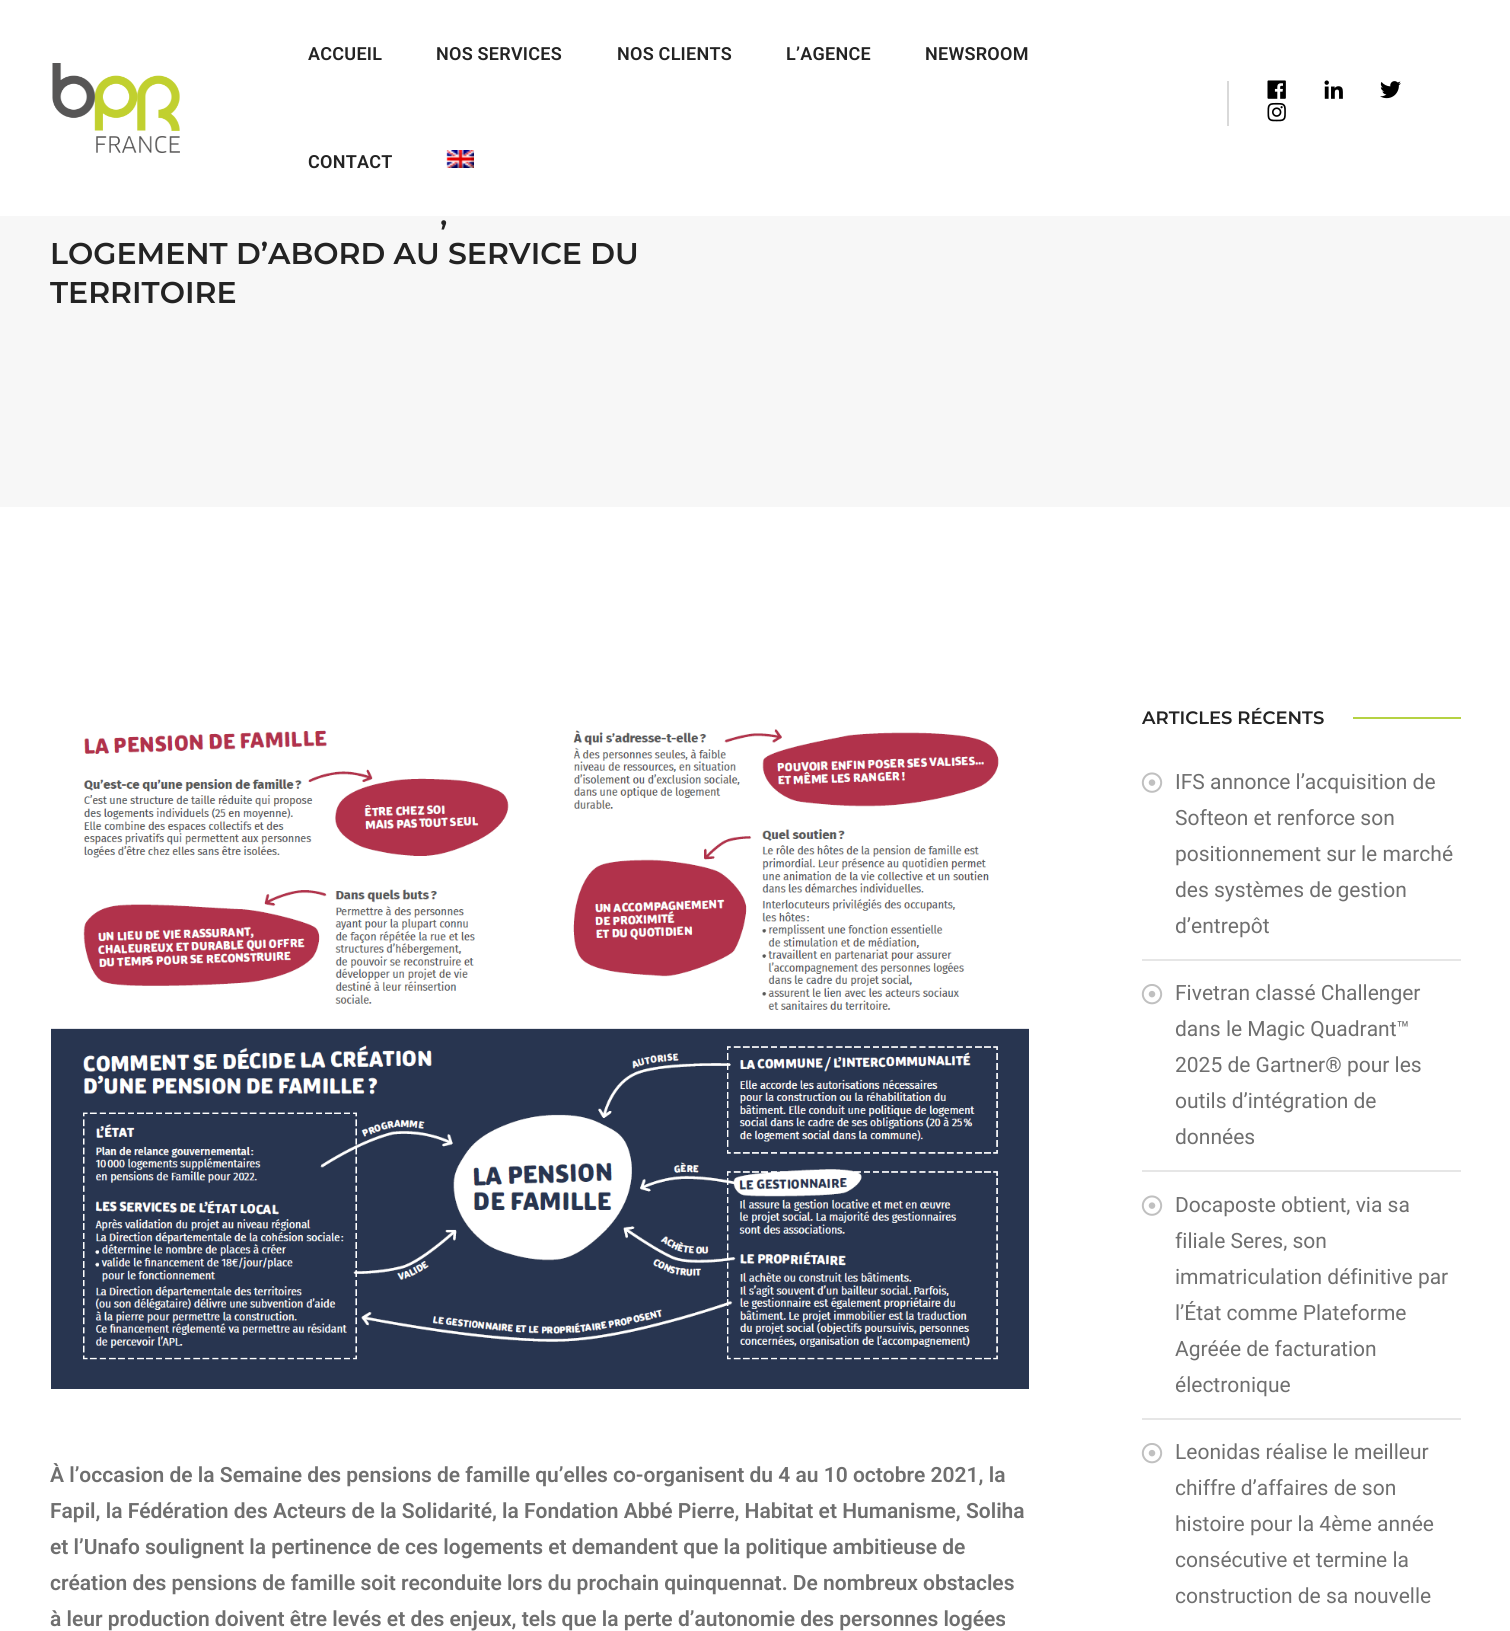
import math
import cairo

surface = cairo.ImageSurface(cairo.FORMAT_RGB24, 1510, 1631)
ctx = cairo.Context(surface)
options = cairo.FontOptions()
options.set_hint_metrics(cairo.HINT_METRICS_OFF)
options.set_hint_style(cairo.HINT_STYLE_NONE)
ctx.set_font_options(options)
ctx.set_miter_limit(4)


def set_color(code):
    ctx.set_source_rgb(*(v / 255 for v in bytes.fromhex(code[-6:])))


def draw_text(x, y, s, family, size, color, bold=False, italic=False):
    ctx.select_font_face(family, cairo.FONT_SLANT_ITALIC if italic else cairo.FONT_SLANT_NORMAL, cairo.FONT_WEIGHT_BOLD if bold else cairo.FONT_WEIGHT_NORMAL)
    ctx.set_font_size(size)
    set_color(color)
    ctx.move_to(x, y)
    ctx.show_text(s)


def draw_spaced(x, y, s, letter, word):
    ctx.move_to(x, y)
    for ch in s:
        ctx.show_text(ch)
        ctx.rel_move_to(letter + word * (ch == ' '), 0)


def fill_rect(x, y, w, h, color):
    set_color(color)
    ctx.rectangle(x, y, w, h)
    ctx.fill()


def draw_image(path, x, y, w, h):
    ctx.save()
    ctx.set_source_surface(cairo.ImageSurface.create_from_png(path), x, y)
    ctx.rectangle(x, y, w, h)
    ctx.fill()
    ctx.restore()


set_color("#ffffff")
ctx.paint()
draw_image("assets/img1.png", 52, 63, 128, 90)
ctx.select_font_face("Roboto SemiBold")
ctx.set_font_size(18)
set_color("#232323")
draw_spaced(308, 60, "ACCUEIL", 0.25, 0)
draw_spaced(436, 60, "NOS SERVICES", 0.25, 0)
draw_spaced(617, 60, "NOS CLIENTS", 0.25, 0)
draw_spaced(786, 60, "L’AGENCE", 0.25, 0)
draw_spaced(925, 60, "NEWSROOM", 0.25, 0)
draw_spaced(308, 168, "CONTACT", 0.25, 0)
draw_image("assets/img2.png", 446, 150, 28, 18)
fill_rect(1227, 81, 2, 45, "#d9d9d9")
draw_image("assets/img3.png", 1267, 80, 19, 19)
draw_image("assets/img4.png", 1324, 80, 19, 19)
draw_image("assets/img5.png", 1380, 81, 21, 18)
draw_image("assets/img6.png", 1267, 102, 19, 20)
fill_rect(0, 216, 1510, 291, "#f7f7f7")
draw_text(440, 225, ",", "Montserrat SemiBold", 30, "#232323")
draw_text(50, 264, "LOGEMENT D’ABORD AU SERVICE DU", "Montserrat SemiBold", 30, "#232323")
draw_text(50, 303, "TERRITOIRE", "Montserrat SemiBold", 30, "#232323")
draw_image("assets/img7.png", 51, 729, 978, 660)
draw_text(50, 1482, "À l’occasion de la Semaine des pensions de famille qu’elles co-organisent du 4 au 10 octobre 2021, la", "Roboto SemiBold", 21, "#6f6f6f")
draw_text(50, 1518, "Fapil, la Fédération des Acteurs de la Solidarité, la Fondation Abbé Pierre, Habitat et Humanisme, Soliha", "Roboto SemiBold", 21, "#6f6f6f")
draw_text(50, 1554, "et l’Unafo soulignent la pertinence de ces logements et demandent que la politique ambitieuse de", "Roboto SemiBold", 21, "#6f6f6f")
draw_text(50, 1590, "création des pensions de famille soit reconduite lors du prochain quinquennat. De nombreux obstacles", "Roboto SemiBold", 21, "#6f6f6f")
draw_text(50, 1626, "à leur production doivent être levés et des enjeux, tels que la perte d’autonomie des personnes logées", "Roboto SemiBold", 21, "#6f6f6f")
draw_text(1142, 724, "ARTICLES RÉCENTS", "Montserrat SemiBold", 18, "#232323")
fill_rect(1353, 717, 108, 2, "#b5d243")
fill_rect(1142, 959, 319, 2, "#e6e6e6")
draw_image("assets/img8.png", 1141, 772, 22, 21)
draw_text(1175, 789, "IFS annonce l’acquisition de", "Roboto", 21, "#6f6f6f")
draw_text(1175, 825, "Softeon et renforce son", "Roboto", 21, "#6f6f6f")
draw_text(1175, 861, "positionnement sur le marché", "Roboto", 21, "#6f6f6f")
draw_text(1175, 897, "des systèmes de gestion", "Roboto", 21, "#6f6f6f")
draw_text(1175, 933, "d’entrepôt", "Roboto", 21, "#6f6f6f")
fill_rect(1142, 1170, 319, 2, "#e6e6e6")
draw_image("assets/img9.png", 1141, 984, 22, 21)
draw_text(1175, 1000, "Fivetran classé Challenger", "Roboto", 21, "#6f6f6f")
draw_text(1175, 1036, "dans le Magic Quadrant™", "Roboto", 21, "#6f6f6f")
draw_text(1175, 1072, "2025 de Gartner® pour les", "Roboto", 21, "#6f6f6f")
draw_text(1175, 1108, "outils d’intégration de", "Roboto", 21, "#6f6f6f")
draw_text(1175, 1144, "données", "Roboto", 21, "#6f6f6f")
fill_rect(1142, 1418, 319, 2, "#e6e6e6")
draw_image("assets/img8.png", 1141, 1195, 22, 21)
draw_text(1175, 1212, "Docaposte obtient, via sa", "Roboto", 21, "#6f6f6f")
draw_text(1175, 1248, "filiale Seres, son", "Roboto", 21, "#6f6f6f")
draw_text(1175, 1284, "immatriculation définitive par", "Roboto", 21, "#6f6f6f")
draw_text(1175, 1320, "l’État comme Plateforme", "Roboto", 21, "#6f6f6f")
draw_text(1175, 1356, "Agréée de facturation", "Roboto", 21, "#6f6f6f")
draw_text(1175, 1392, "électronique", "Roboto", 21, "#6f6f6f")
draw_image("assets/img9.png", 1141, 1443, 22, 21)
draw_text(1175, 1459, "Leonidas réalise le meilleur", "Roboto", 21, "#6f6f6f")
draw_text(1175, 1495, "chiffre d’affaires de son", "Roboto", 21, "#6f6f6f")
draw_text(1175, 1531, "histoire pour la 4ème année", "Roboto", 21, "#6f6f6f")
draw_text(1175, 1567, "consécutive et termine la", "Roboto", 21, "#6f6f6f")
draw_text(1175, 1603, "construction de sa nouvelle", "Roboto", 21, "#6f6f6f")
surface.write_to_png("output.png")
